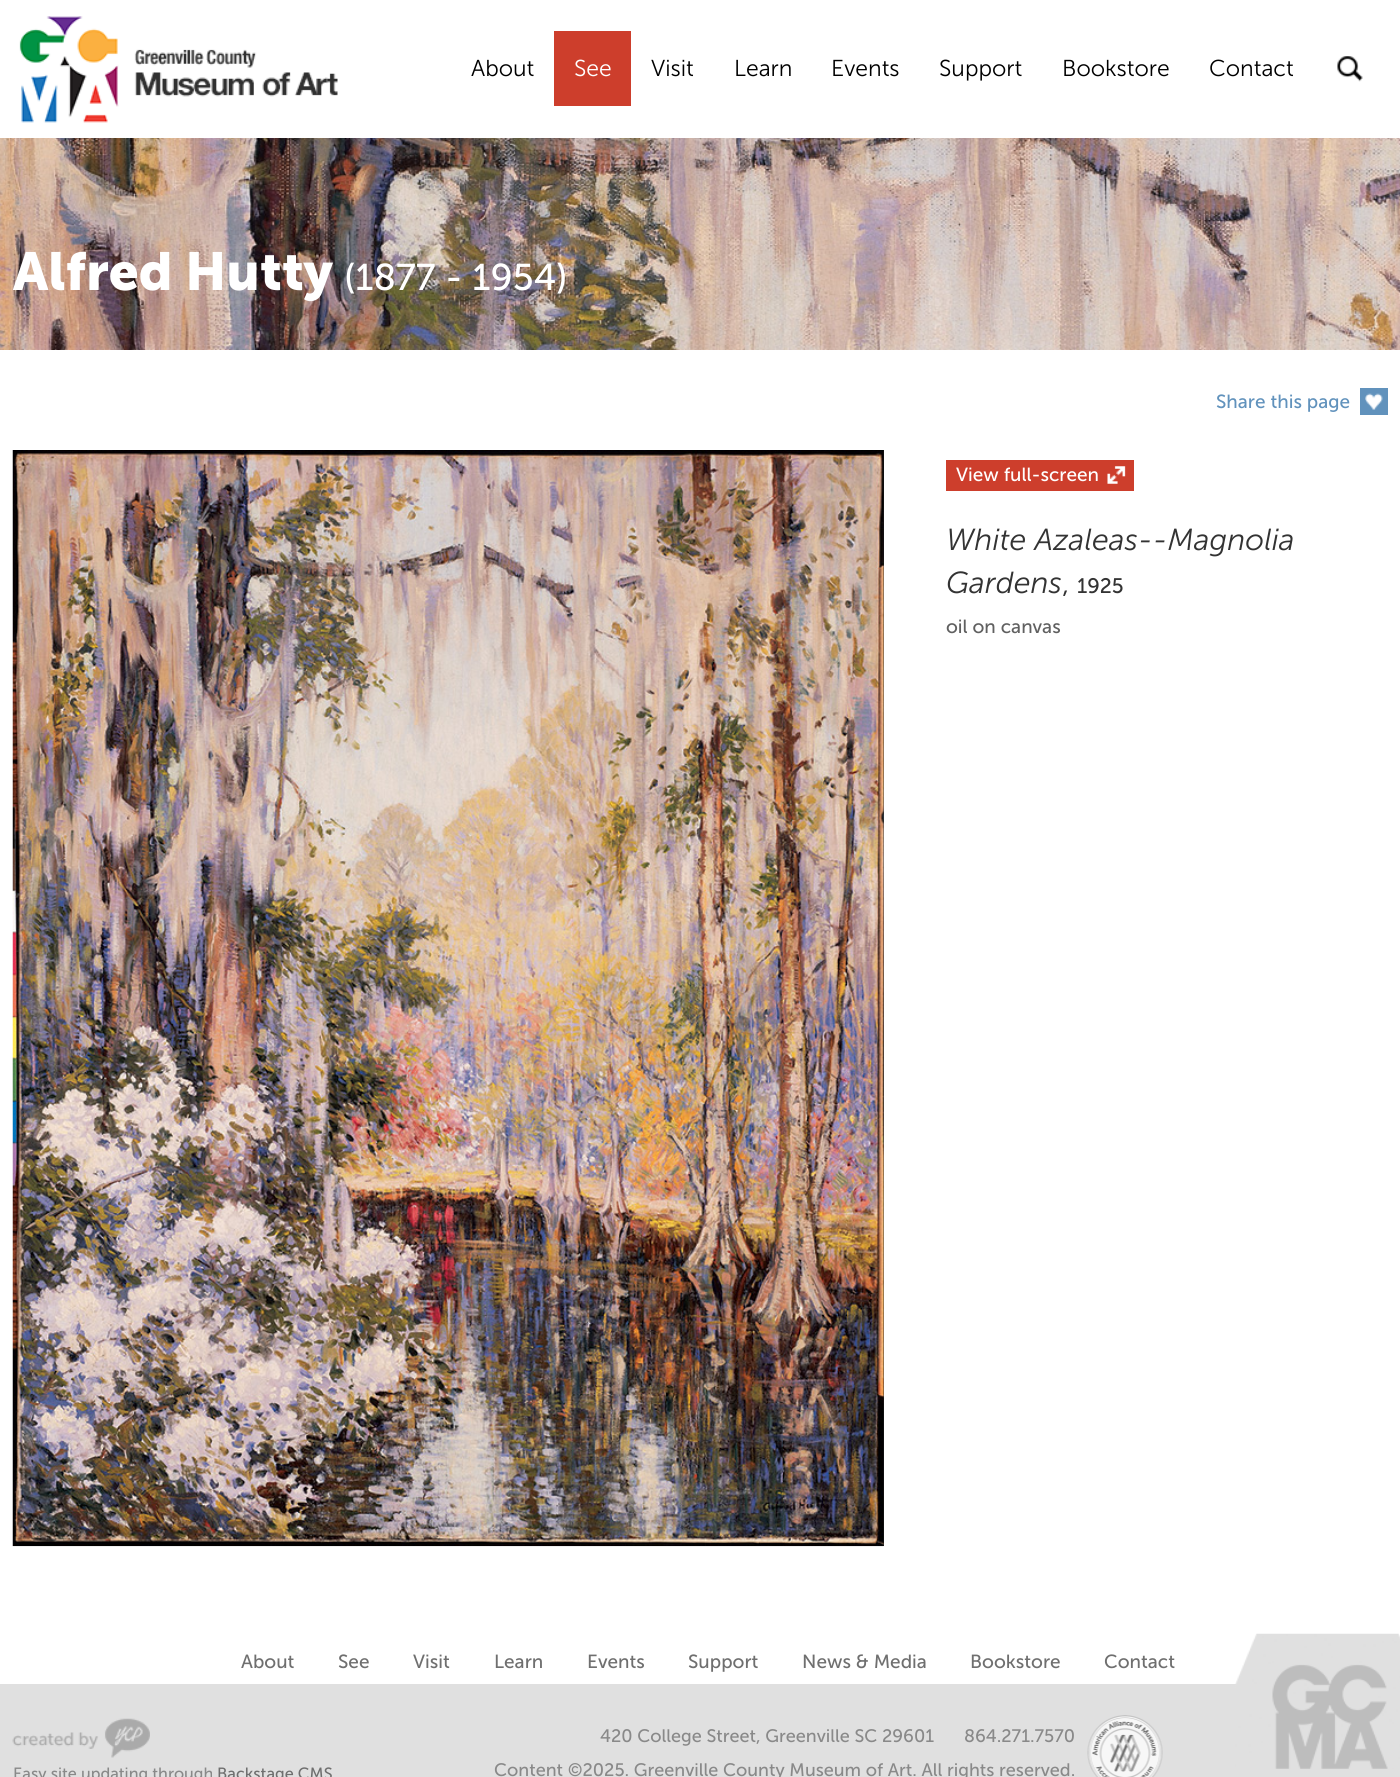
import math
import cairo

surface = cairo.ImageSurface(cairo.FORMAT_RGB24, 1400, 1777)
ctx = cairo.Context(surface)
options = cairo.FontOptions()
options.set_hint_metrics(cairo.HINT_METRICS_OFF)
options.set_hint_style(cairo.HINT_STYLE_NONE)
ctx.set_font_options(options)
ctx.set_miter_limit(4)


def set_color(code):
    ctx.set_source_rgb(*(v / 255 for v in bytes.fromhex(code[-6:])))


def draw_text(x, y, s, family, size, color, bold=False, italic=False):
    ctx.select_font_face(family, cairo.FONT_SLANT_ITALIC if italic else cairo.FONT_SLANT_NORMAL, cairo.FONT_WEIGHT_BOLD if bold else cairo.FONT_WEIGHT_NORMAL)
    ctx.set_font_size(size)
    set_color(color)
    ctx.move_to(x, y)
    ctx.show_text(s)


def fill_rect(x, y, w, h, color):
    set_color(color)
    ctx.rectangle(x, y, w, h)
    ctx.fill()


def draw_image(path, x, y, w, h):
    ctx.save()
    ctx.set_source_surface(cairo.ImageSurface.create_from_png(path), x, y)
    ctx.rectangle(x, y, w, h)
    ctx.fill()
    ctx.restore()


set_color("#ffffff")
ctx.paint()
draw_image("assets/img1.png", 19, 16, 319, 107)
draw_text(471, 76, "About", "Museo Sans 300 Light", 23, "#000000")
fill_rect(554, 31, 77, 75, "#cd3e2c")
draw_text(574, 76, "See", "Museo Sans 300 Light", 23, "#ffffff")
draw_text(651, 76, "Visit", "Museo Sans 300 Light", 23, "#000000")
draw_text(734, 76, "Learn", "Museo Sans 300 Light", 23, "#000000")
draw_text(831, 76, "Events", "Museo Sans 300 Light", 23, "#000000")
draw_text(939, 76, "Support", "Museo Sans 300 Light", 23, "#000000")
draw_text(1062, 76, "Bookstore", "Museo Sans 300 Light", 23, "#000000")
draw_text(1209, 76, "Contact", "Museo Sans 300 Light", 23, "#000000")
draw_image("assets/img2.png", 1337, 56, 26, 26)
draw_image("assets/img3.png", 0, 138, 1400, 212)
draw_text(13, 290, "Alfred Hutty", "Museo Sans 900", 53.25, "#ffffff", bold=True)
draw_text(344, 290, "(1877 - 1954)", "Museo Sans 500", 37.25, "#ffffff")
fill_rect(883, 450, 1, 1096, "#202020")
draw_image("assets/img4.png", 12, 450, 872, 1097)
draw_text(1216, 408, "Share this page", "Museo Sans 500", 19, "#6192bc")
fill_rect(1360, 388, 28, 27, "#6192bc")
draw_image("assets/img5.png", 1365, 393, 18, 17)
fill_rect(946, 460, 188, 31, "#cd3e2c")
draw_image("assets/img6.png", 1107, 466, 19, 18)
draw_text(956, 481, "View full-screen", "Museo Sans 500", 19, "#ffffff")
draw_text(946, 550, "White Azaleas--Magnolia", "Museo Sans 300 Light", 30.4, "#333333", italic=True)
draw_text(946, 593, "Gardens", "Museo Sans 300 Light", 30.4, "#333333", italic=True)
draw_text(1062, 593, ",", "Museo Sans 300 Light", 30.4, "#333333")
draw_text(1077, 593, "1925", "Museo Sans 500", 21, "#333333")
draw_text(946, 633, "oil on canvas", "Museo Sans 500", 19, "#606060")
fill_rect(0, 1684, 1400, 93, "#e0e0e0")
draw_text(241, 1668, "About", "Museo Sans 500", 19, "#6f6f6f")
draw_text(338, 1668, "See", "Museo Sans 500", 19, "#6f6f6f")
draw_text(413, 1668, "Visit", "Museo Sans 500", 19, "#6f6f6f")
draw_text(494, 1668, "Learn", "Museo Sans 500", 19, "#6f6f6f")
draw_text(587, 1668, "Events", "Museo Sans 500", 19, "#6f6f6f")
draw_text(688, 1668, "Support", "Museo Sans 500", 19, "#6f6f6f")
draw_text(802, 1668, "News & Media", "Museo Sans 500", 19, "#6f6f6f")
draw_text(970, 1668, "Bookstore", "Museo Sans 500", 19, "#6f6f6f")
draw_text(1104, 1668, "Contact", "Museo Sans 500", 19, "#6f6f6f")
draw_image("assets/img7.png", 1235, 1633, 165, 136)
draw_image("assets/img8.png", 12, 1718, 138, 40)
draw_text(13, 1779, "Easy site updating through", "Museo Sans 500", 16.25, "#898989")
draw_text(217, 1779, "Backstage CMS", "Museo Sans 500", 16.25, "#6f6f6f")
draw_text(600, 1742, "420 College Street, Greenville SC 29601", "Museo Sans 500", 18.05, "#898989")
draw_text(964, 1742, "864.271.7570", "Museo Sans 500", 18.05, "#898989")
draw_image("assets/img9.png", 1087, 1715, 76, 62)
draw_text(494, 1776, "Content ©2025. Greenville County Museum of Art. All rights reserved.", "Museo Sans 500", 18.05, "#898989")
surface.write_to_png("output.png")
